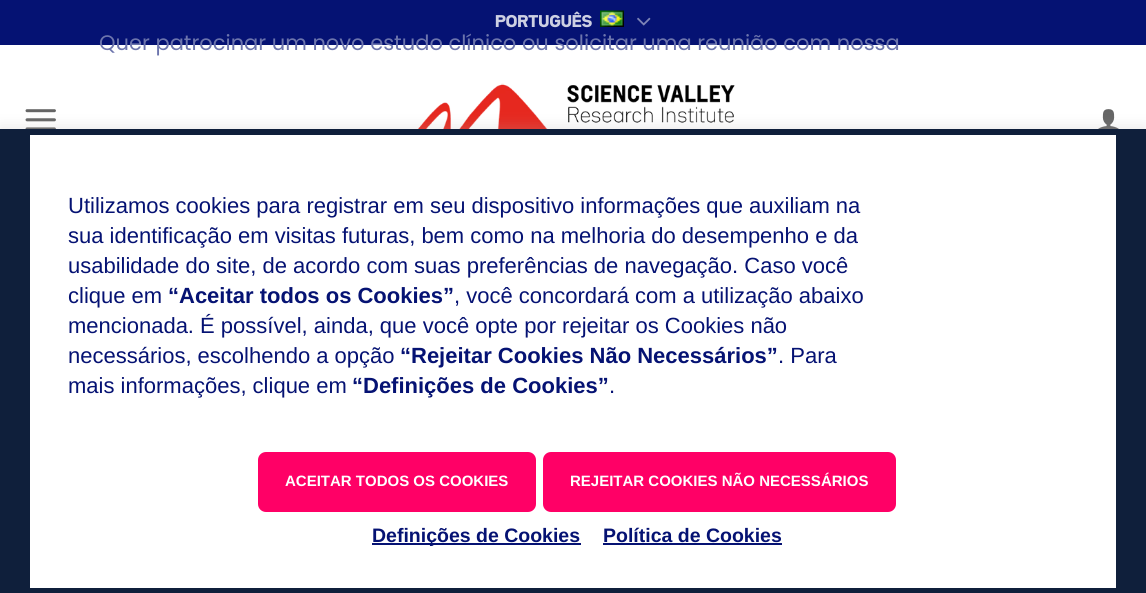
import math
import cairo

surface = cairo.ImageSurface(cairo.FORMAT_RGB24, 1146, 593)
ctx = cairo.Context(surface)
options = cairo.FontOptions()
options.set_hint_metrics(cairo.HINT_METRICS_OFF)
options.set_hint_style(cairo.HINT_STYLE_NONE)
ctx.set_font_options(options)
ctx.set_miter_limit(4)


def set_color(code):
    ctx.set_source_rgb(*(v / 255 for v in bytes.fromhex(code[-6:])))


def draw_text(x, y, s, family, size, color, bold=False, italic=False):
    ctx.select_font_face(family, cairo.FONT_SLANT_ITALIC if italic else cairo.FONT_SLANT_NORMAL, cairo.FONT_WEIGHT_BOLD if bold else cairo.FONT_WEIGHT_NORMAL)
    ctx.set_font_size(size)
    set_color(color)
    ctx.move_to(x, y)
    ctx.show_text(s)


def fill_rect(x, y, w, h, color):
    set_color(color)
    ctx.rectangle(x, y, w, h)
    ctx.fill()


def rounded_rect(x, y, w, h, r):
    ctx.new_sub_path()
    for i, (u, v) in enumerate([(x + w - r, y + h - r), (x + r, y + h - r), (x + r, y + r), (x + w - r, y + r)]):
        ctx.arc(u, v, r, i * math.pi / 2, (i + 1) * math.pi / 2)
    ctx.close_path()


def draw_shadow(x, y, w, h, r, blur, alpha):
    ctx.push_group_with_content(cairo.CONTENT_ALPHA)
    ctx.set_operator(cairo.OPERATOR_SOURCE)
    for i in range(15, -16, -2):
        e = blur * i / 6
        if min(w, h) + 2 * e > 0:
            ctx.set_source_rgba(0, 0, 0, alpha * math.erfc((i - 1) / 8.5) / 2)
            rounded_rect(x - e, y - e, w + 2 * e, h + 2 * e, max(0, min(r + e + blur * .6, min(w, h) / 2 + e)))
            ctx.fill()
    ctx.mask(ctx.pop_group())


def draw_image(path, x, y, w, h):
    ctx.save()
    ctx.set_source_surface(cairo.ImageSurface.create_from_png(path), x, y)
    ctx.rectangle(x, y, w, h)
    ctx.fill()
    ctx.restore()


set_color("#ffffff")
ctx.paint()
fill_rect(0, 0, 1146, 45, "#051273")
draw_text(495, 27, "PORTUGUÊS", "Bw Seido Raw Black", 15, "#cdd0e3")
draw_image("assets/img1.png", 600, 10, 24, 17)
draw_image("assets/img2.png", 637, 17, 14, 9)
draw_image("assets/img3.png", 25, 109, 31, 20)
draw_image("assets/img4.png", 418, 83, 317, 46)
draw_image("assets/img5.png", 1098, 109, 21, 20)
draw_text(99, 50, "Quer patrocinar um novo estudo clínico ou solicitar uma reunião com nossa", "Poppins", 21, "#6d75ad")
set_color("#acabab")
draw_shadow(0, 128, 1146, 465, 0, 7.5, 0.3)
fill_rect(30, 135, 1086, 453, "#ffffff")
fill_rect(30, 129, 1086, 6, "#0f1f3b")
fill_rect(1116, 129, 30, 459, "#0f1f3b")
fill_rect(30, 588, 1116, 5, "#0f1f3b")
fill_rect(0, 129, 30, 464, "#0f1f3b")
draw_text(68, 213, "Utilizamos cookies para registrar em seu dispositivo informações que auxiliam na", "Liberation Sans", 22, "#051273")
draw_text(68, 243, "sua identificação em visitas futuras, bem como na melhoria do desempenho e da", "Liberation Sans", 22, "#051273")
draw_text(68, 273, "usabilidade do site, de acordo com suas preferências de navegação. Caso você", "Liberation Sans", 22, "#051273")
draw_text(68, 303, "clique em", "Liberation Sans", 22, "#051273")
draw_text(168, 303, "“Aceitar todos os Cookies”", "Liberation Sans", 22, "#051273", bold=True)
draw_text(454, 303, ", você concordará com a utilização abaixo", "Liberation Sans", 22, "#051273")
draw_text(68, 333, "mencionada. É possível, ainda, que você opte por rejeitar os Cookies não", "Liberation Sans", 22, "#051273")
draw_text(68, 363, "necessários, escolhendo a opção", "Liberation Sans", 22, "#051273")
draw_text(400, 363, "“Rejeitar Cookies Não Necessários”", "Liberation Sans", 22, "#051273", bold=True)
draw_text(778, 363, ". Para", "Liberation Sans", 22, "#051273")
draw_text(68, 393, "mais informações, clique em", "Liberation Sans", 22, "#051273")
draw_text(352, 393, "“Definições de Cookies”", "Liberation Sans", 22, "#051273", bold=True)
draw_text(609, 393, ".", "Liberation Sans", 22, "#051273")
set_color("#ff0066")
rounded_rect(258, 452, 278, 60, 8)
ctx.fill()
draw_text(285, 486, "ACEITAR TODOS OS COOKIES", "Liberation Sans", 15, "#ffffff", bold=True)
set_color("#ff0066")
rounded_rect(543, 452, 353, 60, 8)
ctx.fill()
draw_text(570, 486, "REJEITAR COOKIES NÃO NECESSÁRIOS", "Liberation Sans", 15, "#ffffff", bold=True)
fill_rect(372, 543, 209, 2, "#051273")
draw_text(372, 542, "Definições de Cookies", "Liberation Sans", 19.5, "#051273", bold=True)
draw_text(603, 542, "Política de Cookies", "Liberation Sans", 19.5, "#051273", bold=True)
fill_rect(603, 543, 179, 2, "#051273")
surface.write_to_png("output.png")
